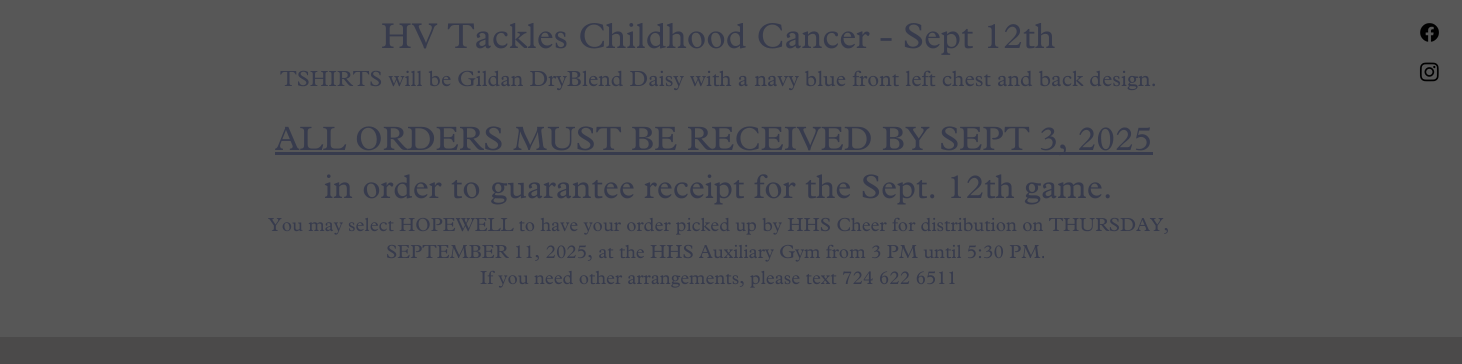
import math
import cairo

surface = cairo.ImageSurface(cairo.FORMAT_RGB24, 1462, 364)
ctx = cairo.Context(surface)
options = cairo.FontOptions()
options.set_hint_metrics(cairo.HINT_METRICS_OFF)
options.set_hint_style(cairo.HINT_STYLE_NONE)
ctx.set_font_options(options)
ctx.set_miter_limit(4)


def set_color(code):
    ctx.set_source_rgb(*(v / 255 for v in bytes.fromhex(code[-6:])))


def draw_text(x, y, s, family, size, color, bold=False, italic=False):
    ctx.select_font_face(family, cairo.FONT_SLANT_ITALIC if italic else cairo.FONT_SLANT_NORMAL, cairo.FONT_WEIGHT_BOLD if bold else cairo.FONT_WEIGHT_NORMAL)
    ctx.set_font_size(size)
    set_color(color)
    ctx.move_to(x, y)
    ctx.show_text(s)


def fill_rect(x, y, w, h, color):
    set_color(color)
    ctx.rectangle(x, y, w, h)
    ctx.fill()


def draw_image(path, x, y, w, h):
    ctx.save()
    ctx.set_source_surface(cairo.ImageSurface.create_from_png(path), x, y)
    ctx.rectangle(x, y, w, h)
    ctx.fill()
    ctx.restore()


set_color("#575757")
ctx.paint()
draw_text(381, 48, "HV Tackles Childhood Cancer - Sept 12th", "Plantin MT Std", 36, "#373b4d")
draw_text(280, 86, "TSHIRTS will be Gildan DryBlend Daisy with a navy blue front left chest and back design.", "Plantin MT Std", 22, "#373b4d")
fill_rect(275, 152, 878, 3, "#373b4d")
draw_text(275, 150, "ALL ORDERS MUST BE RECEIVED BY SEPT 3, 2025", "Plantin MT Std", 34, "#373b4d")
draw_text(324, 198, "in order to guarantee receipt for the Sept. 12th game.", "Plantin MT Std", 34, "#373b4d")
draw_text(268, 231, "You may select HOPEWELL to have your order picked up by HHS Cheer for distribution on THURSDAY,", "Plantin MT Std", 19, "#373b4d")
draw_text(386, 258, "SEPTEMBER 11, 2025, at the HHS Auxiliary Gym from 3 PM until 5:30 PM.", "Plantin MT Std", 19, "#373b4d")
draw_text(480, 284, "If you need other arrangements, please text 724 622 6511", "Plantin MT Std", 19, "#373b4d")
fill_rect(0, 337, 1462, 27, "#4b4a4a")
draw_image("assets/img1.png", 1420, 23, 19, 19)
draw_image("assets/img2.png", 1419, 62, 20, 20)
surface.write_to_png("output.png")
